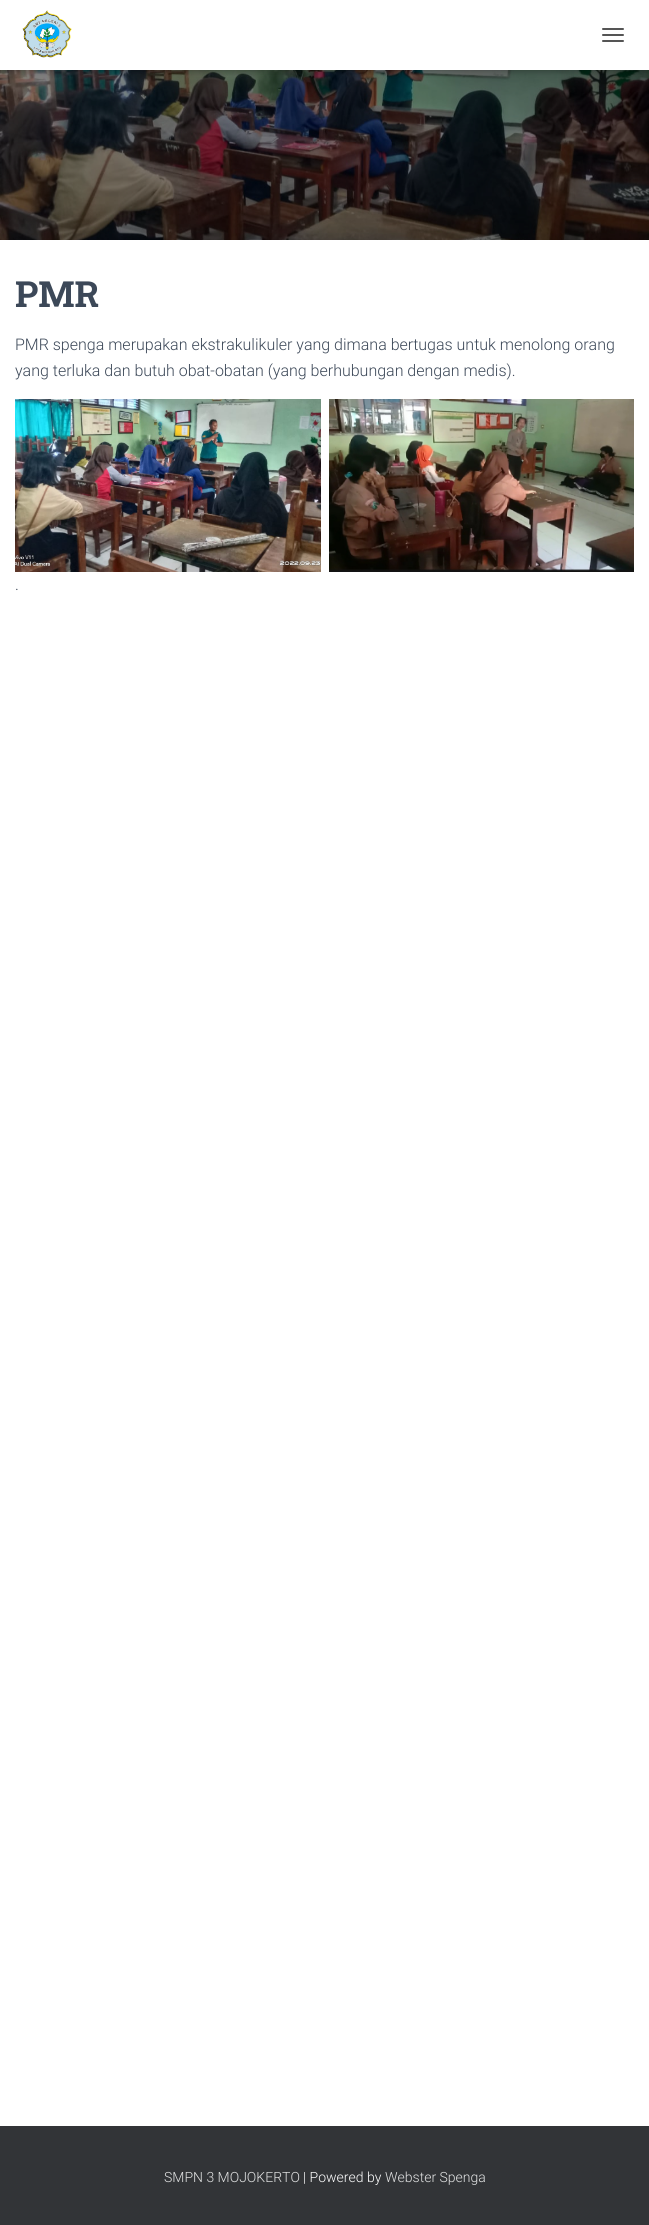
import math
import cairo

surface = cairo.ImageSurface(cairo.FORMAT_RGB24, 649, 2225)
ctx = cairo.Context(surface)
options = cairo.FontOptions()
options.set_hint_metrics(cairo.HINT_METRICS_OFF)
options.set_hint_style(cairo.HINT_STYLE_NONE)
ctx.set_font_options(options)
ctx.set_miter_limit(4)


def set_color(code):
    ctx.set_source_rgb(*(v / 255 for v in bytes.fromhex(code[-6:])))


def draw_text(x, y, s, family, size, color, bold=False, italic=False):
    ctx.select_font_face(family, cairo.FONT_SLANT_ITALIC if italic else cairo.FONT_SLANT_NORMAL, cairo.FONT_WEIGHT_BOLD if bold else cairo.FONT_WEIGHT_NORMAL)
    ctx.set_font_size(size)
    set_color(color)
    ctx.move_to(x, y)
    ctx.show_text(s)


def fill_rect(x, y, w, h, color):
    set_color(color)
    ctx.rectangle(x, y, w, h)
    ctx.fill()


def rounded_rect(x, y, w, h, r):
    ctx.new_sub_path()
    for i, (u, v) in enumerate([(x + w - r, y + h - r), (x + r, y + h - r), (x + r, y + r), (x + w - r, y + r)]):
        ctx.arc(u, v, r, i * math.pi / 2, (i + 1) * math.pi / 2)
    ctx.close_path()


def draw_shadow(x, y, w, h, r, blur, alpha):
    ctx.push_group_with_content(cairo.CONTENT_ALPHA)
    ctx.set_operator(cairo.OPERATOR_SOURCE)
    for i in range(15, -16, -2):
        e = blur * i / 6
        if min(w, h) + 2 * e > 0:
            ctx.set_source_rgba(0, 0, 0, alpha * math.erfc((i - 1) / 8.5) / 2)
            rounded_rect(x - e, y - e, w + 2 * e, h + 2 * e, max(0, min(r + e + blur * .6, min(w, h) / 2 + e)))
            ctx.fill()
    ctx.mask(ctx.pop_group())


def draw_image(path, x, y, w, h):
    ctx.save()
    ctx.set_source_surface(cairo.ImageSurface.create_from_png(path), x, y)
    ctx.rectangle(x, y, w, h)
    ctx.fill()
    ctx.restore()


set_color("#ffffff")
ctx.paint()
draw_image("assets/img2.png", 0, 70, 649, 170)
set_color("#000000")
draw_shadow(2, 6, 645, 66, 0, 2.5, 0.1)
draw_shadow(0, 1, 649, 70, 0, 5, 0.12)
draw_shadow(6, 7, 637, 58, 0, 5, 0.42)
fill_rect(0, 0, 649, 70, "#ffffff")
draw_image("assets/img1.png", 22, 10, 50, 48)
set_color("#555555")
rounded_rect(602, 28, 22, 2, 1)
ctx.fill()
rounded_rect(602, 34, 22, 2, 1)
ctx.fill()
rounded_rect(602, 40, 22, 2, 1)
ctx.fill()
set_color("#000000")
draw_shadow(-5, 241, 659, 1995, 0, 15, 0.12)
fill_rect(0, 240, 649, 1886, "#ffffff")
draw_text(15, 307, "PMR", "Roboto Slab", 36, "#3c4858", bold=True)
draw_text(15, 350, "PMR spenga merupakan ekstrakulikuler yang dimana bertugas untuk menolong orang", "Roboto Light", 16, "#3c4858")
draw_text(15, 376, "yang terluka dan butuh obat-obatan (yang berhubungan dengan medis).", "Roboto Light", 16, "#3c4858")
draw_image("assets/img3.png", 15, 399, 306, 173)
draw_image("assets/img4.png", 329, 399, 305, 173)
draw_text(15, 590, ".", "Roboto Light", 16, "#3c4858")
fill_rect(0, 2126, 649, 99, "#323437")
draw_text(164, 2182, "SMPN 3 MOJOKERTO", "Roboto Light", 14, "#e2e3e3")
draw_text(303, 2182, "| Powered by", "Roboto Light", 14, "#ffffff")
draw_text(385, 2182, "Webster Spenga", "Roboto Light", 14, "#e2e3e3")
surface.write_to_png("output.png")
